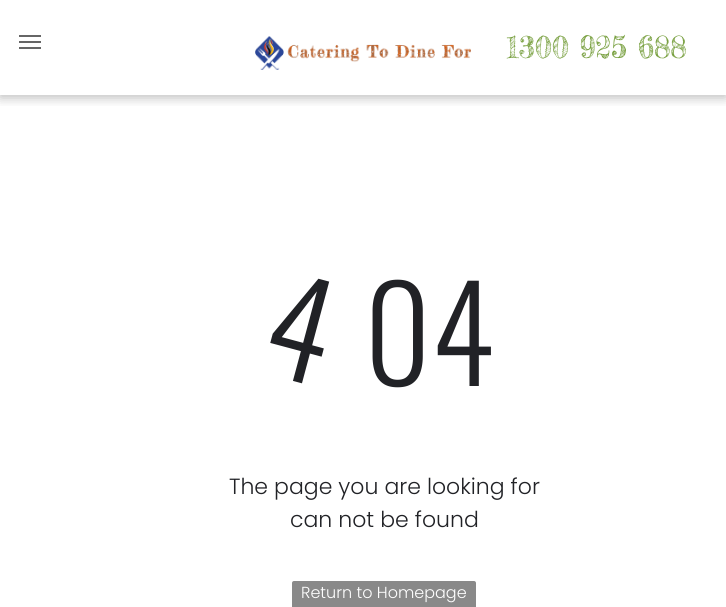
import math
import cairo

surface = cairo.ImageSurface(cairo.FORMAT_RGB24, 726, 607)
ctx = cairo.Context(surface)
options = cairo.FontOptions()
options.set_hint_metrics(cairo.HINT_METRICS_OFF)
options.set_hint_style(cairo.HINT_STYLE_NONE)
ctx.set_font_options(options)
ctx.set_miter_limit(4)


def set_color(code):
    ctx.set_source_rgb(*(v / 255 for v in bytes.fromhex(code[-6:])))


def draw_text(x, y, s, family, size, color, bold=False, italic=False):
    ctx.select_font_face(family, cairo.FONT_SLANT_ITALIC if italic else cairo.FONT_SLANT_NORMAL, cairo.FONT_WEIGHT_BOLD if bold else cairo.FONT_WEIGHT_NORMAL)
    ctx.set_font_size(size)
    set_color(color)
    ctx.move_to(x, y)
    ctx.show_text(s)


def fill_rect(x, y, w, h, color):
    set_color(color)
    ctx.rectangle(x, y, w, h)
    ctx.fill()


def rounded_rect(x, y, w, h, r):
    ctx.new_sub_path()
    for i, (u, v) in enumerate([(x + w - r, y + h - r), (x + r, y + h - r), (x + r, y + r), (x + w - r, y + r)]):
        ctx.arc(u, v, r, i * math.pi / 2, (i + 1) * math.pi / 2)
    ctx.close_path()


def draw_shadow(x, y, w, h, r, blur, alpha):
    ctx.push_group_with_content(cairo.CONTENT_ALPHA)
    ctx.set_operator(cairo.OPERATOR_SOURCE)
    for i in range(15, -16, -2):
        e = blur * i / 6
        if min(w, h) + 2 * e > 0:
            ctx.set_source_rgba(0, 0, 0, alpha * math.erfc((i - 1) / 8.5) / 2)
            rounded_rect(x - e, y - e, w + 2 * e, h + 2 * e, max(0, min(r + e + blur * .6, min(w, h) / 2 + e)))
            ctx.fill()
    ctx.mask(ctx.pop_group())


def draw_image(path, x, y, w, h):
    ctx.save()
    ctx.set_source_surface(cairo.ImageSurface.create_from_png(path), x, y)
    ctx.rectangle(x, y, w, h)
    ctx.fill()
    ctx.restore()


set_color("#ffffff")
ctx.paint()
ctx.save()
ctx.rectangle(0, 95, 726, 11)
ctx.clip()
set_color("#000000")
draw_shadow(0, 3, 726, 95, 0, 5.5, 0.25)
ctx.restore()
fill_rect(19, 35, 22, 2, "#666666")
fill_rect(19, 41, 22, 2, "#666666")
fill_rect(19, 47, 22, 2, "#666666")
draw_image("assets/img1.png", 255, 36, 216, 34)
draw_text(506, 58, "1300 925 688", "Fredericka the Great", 30, "#779f3e")
ctx.save()
ctx.translate(256, 371)
ctx.rotate(15 * math.pi / 180)
draw_text(0, 0, "4", "Oswald Light", 130, "#212226")
ctx.restore()
draw_text(364, 386, "04", "Oswald Light", 130, "#212226")
draw_text(229, 494, "The page you are looking for", "Poppins Light", 22, "#212226")
draw_text(290, 527, "can not be found", "Poppins Light", 22, "#212226")
set_color("#898989")
rounded_rect(292, 581, 184, 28, 2)
ctx.fill()
draw_text(301, 598, "Return to Homepage", "Poppins Light", 16, "#ffffff")
surface.write_to_png("output.png")
